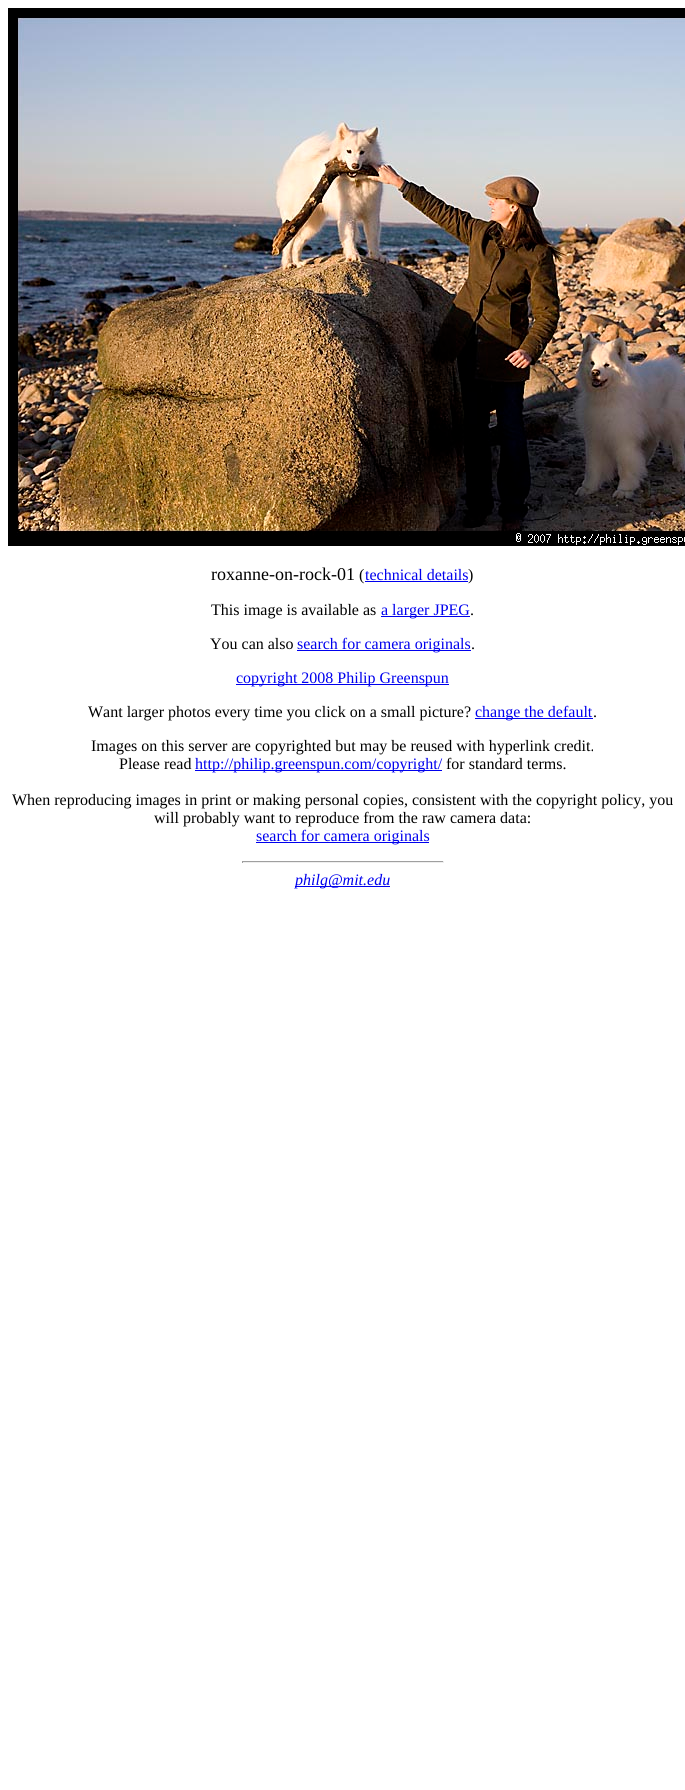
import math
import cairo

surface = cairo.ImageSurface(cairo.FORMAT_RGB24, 685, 1790)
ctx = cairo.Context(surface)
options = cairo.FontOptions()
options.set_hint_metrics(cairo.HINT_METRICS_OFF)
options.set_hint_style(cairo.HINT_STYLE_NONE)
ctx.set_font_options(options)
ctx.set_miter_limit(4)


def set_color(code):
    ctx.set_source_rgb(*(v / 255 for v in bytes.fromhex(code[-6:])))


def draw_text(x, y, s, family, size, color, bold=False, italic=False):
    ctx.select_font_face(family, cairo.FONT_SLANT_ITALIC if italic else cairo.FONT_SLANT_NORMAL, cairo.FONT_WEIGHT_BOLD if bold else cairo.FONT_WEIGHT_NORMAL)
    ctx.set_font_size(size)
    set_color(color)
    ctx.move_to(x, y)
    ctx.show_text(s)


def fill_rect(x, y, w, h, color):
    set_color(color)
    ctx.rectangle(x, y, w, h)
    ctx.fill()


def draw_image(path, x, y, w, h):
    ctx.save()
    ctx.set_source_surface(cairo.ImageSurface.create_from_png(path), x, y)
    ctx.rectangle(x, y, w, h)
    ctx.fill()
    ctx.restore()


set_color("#ffffff")
ctx.paint()
draw_image("assets/img1.png", 8, 8, 677, 538)
draw_text(211, 580, "roxanne-on-rock-01", "Liberation Serif", 18, "#000000")
draw_text(359, 580, "(", "Liberation Serif", 16, "#000000")
draw_text(365, 580, "technical details", "Liberation Serif", 16, "#0000ee")
fill_rect(365, 581, 103, 1, "#0000ee")
draw_text(468, 580, ")", "Liberation Serif", 16, "#000000")
draw_text(211, 615, "This image is available as", "Liberation Serif", 16, "#000000")
fill_rect(381, 616, 89, 1, "#0000ee")
draw_text(381, 615, "a larger JPEG", "Liberation Serif", 16, "#0000ee")
draw_text(470, 615, ".", "Liberation Serif", 16, "#000000")
draw_text(210, 649, "You can also", "Liberation Serif", 16, "#000000")
fill_rect(297, 650, 174, 1, "#0000ee")
draw_text(297, 649, "search for camera originals", "Liberation Serif", 16, "#0000ee")
draw_text(471, 649, ".", "Liberation Serif", 16, "#000000")
fill_rect(236, 684, 213, 1, "#0000ee")
draw_text(236, 683, "copyright 2008 Philip Greenspun", "Liberation Serif", 16, "#0000ee")
draw_text(88, 717, "Want larger photos every time you click on a small picture?", "Liberation Serif", 16, "#000000")
fill_rect(475, 718, 118, 1, "#0000ee")
draw_text(475, 717, "change the default", "Liberation Serif", 16, "#0000ee")
draw_text(593, 717, ".", "Liberation Serif", 16, "#000000")
draw_text(91, 751, "Images on this server are copyrighted but may be reused with hyperlink credit.", "Liberation Serif", 16, "#000000")
draw_text(119, 769, "Please read", "Liberation Serif", 16, "#000000")
fill_rect(195, 770, 247, 1, "#0000ee")
draw_text(195, 769, "http://philip.greenspun.com/copyright/", "Liberation Serif", 16, "#0000ee")
draw_text(446, 769, "for standard terms.", "Liberation Serif", 16, "#000000")
draw_text(12, 805, "When reproducing images in print or making personal copies, consistent with the copyright policy, you", "Liberation Serif", 16, "#000000")
draw_text(154, 823, "will probably want to reproduce from the raw camera data:", "Liberation Serif", 16, "#000000")
fill_rect(256, 842, 173, 1, "#0000ee")
draw_text(256, 841, "search for camera originals", "Liberation Serif", 16, "#0000ee")
fill_rect(242, 861, 202, 1, "#9f9f9f")
fill_rect(443, 861, 1, 2, "#eeeeee")
fill_rect(242, 862, 202, 1, "#eeeeee")
fill_rect(242, 861, 1, 2, "#9f9f9f")
fill_rect(295, 886, 95, 1, "#0000ee")
draw_text(295, 885, "philg@mit.edu", "Liberation Serif", 16, "#0000ee", italic=True)
surface.write_to_png("output.png")
